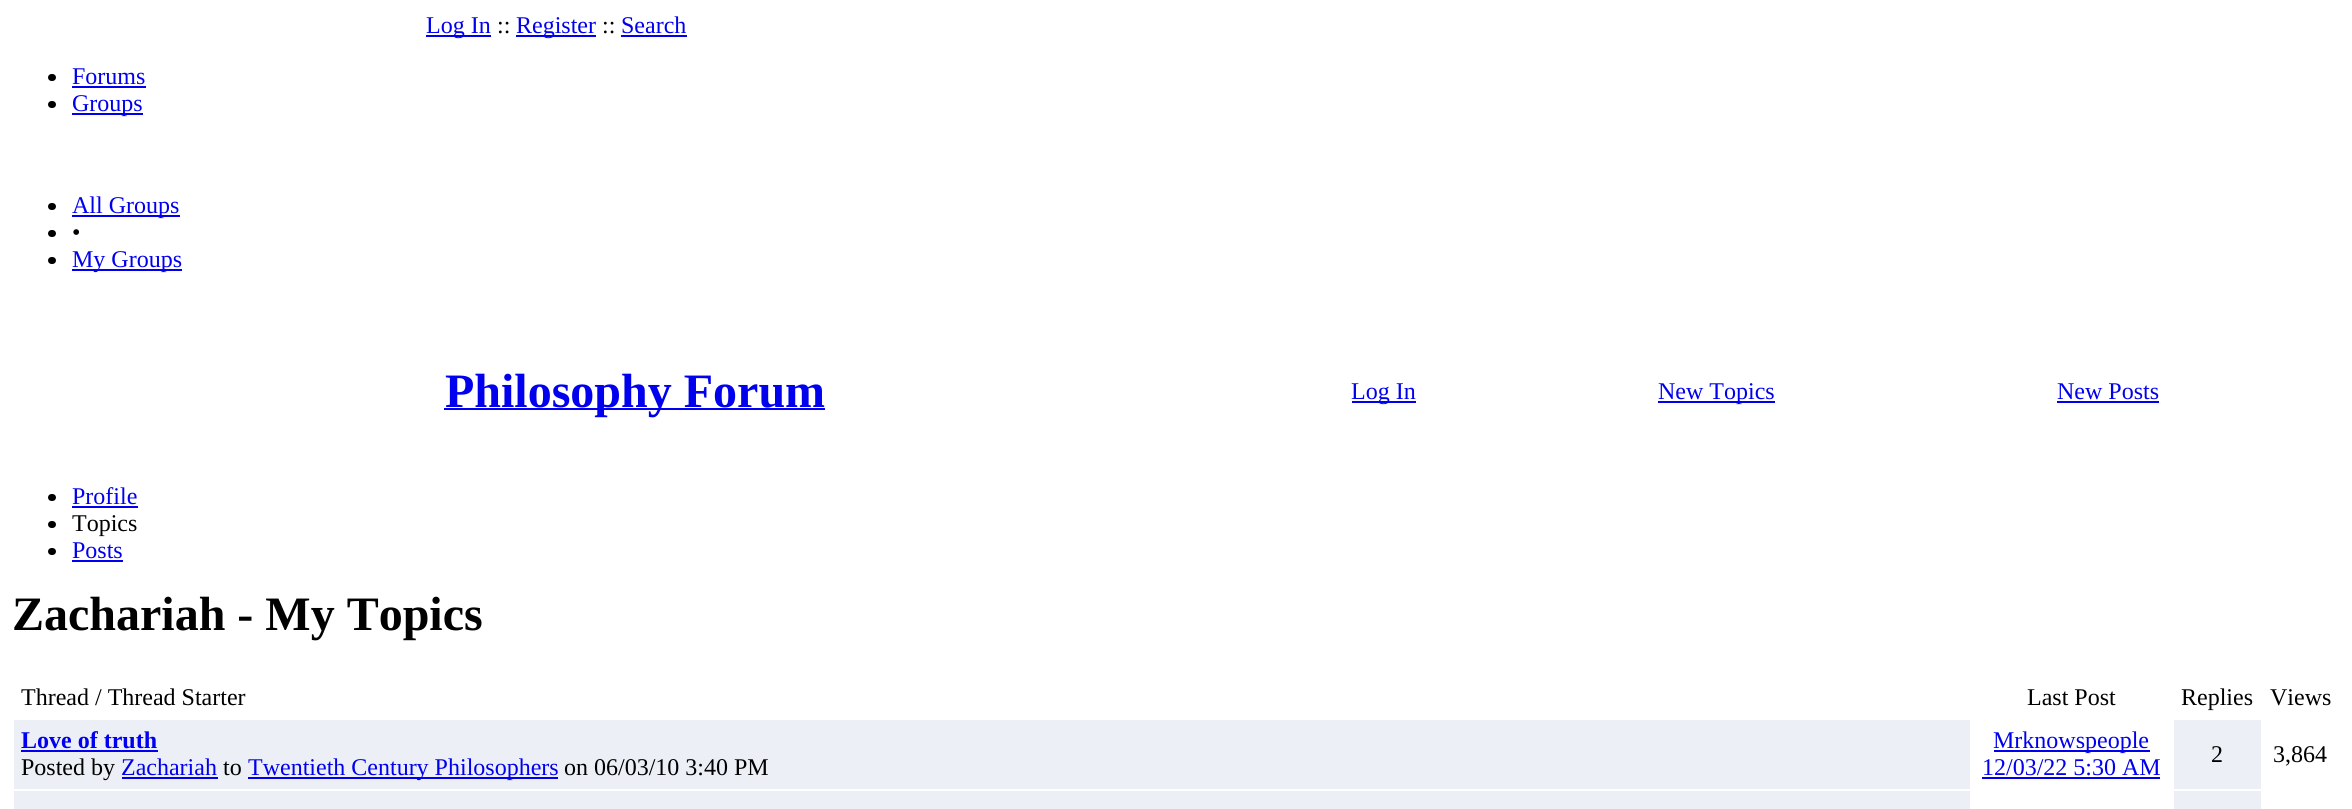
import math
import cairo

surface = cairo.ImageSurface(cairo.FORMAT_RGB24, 2352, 809)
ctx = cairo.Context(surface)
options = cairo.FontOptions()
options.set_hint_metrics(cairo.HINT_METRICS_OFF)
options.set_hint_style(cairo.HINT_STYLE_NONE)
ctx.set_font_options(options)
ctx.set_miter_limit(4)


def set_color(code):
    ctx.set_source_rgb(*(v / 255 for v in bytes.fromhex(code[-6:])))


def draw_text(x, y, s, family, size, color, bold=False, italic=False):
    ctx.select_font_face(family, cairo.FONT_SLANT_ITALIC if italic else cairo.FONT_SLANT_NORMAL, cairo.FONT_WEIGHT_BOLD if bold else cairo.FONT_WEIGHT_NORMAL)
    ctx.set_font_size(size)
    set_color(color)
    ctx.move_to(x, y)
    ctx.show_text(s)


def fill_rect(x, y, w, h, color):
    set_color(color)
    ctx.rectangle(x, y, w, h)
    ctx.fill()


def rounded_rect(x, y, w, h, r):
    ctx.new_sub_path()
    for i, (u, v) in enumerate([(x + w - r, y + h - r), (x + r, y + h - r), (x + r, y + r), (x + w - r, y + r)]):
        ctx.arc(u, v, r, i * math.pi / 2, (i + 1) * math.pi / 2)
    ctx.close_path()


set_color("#ffffff")
ctx.paint()
fill_rect(426, 35, 65, 2, "#0000ee")
draw_text(426, 33, "Log In", "Liberation Serif", 24, "#0000ee")
draw_text(497, 33, "::", "Liberation Serif", 24, "#000000")
fill_rect(516, 35, 80, 2, "#0000ee")
draw_text(516, 33, "Register", "Liberation Serif", 24, "#0000ee")
draw_text(602, 33, "::", "Liberation Serif", 24, "#000000")
draw_text(621, 33, "Search", "Liberation Serif", 24, "#0000ee")
fill_rect(621, 35, 66, 2, "#0000ee")
set_color("#000000")
rounded_rect(48, 74, 8, 7, 3.5)
ctx.fill()
draw_text(72, 84, "Forums", "Liberation Serif", 24, "#0000ee")
fill_rect(72, 86, 74, 2, "#0000ee")
set_color("#000000")
rounded_rect(48, 101, 8, 7, 3.5)
ctx.fill()
fill_rect(72, 113, 71, 2, "#0000ee")
draw_text(72, 111, "Groups", "Liberation Serif", 24, "#0000ee")
set_color("#000000")
rounded_rect(48, 203, 8, 7, 3.5)
ctx.fill()
fill_rect(72, 215, 108, 2, "#0000ee")
draw_text(72, 213, "All Groups", "Liberation Serif", 24, "#0000ee")
set_color("#000000")
rounded_rect(48, 230, 8, 7, 3.5)
ctx.fill()
draw_text(72, 240, "•", "Liberation Serif", 24, "#000000")
rounded_rect(48, 257, 8, 7, 3.5)
ctx.fill()
fill_rect(72, 269, 110, 2, "#0000ee")
draw_text(72, 267, "My Groups", "Liberation Serif", 24, "#0000ee")
fill_rect(444, 408, 381, 2, "#0000ee")
draw_text(445, 407, "Philosophy Forum", "Liberation Serif", 48, "#0000ee", bold=True)
fill_rect(1352, 401, 64, 2, "#0000ee")
draw_text(1351, 399, "Log In", "Liberation Serif", 24, "#0000ee")
fill_rect(1658, 401, 117, 2, "#0000ee")
draw_text(1658, 399, "New Topics", "Liberation Serif", 24, "#0000ee")
draw_text(2057, 399, "New Posts", "Liberation Serif", 24, "#0000ee")
fill_rect(2057, 401, 102, 2, "#0000ee")
set_color("#000000")
rounded_rect(48, 494, 8, 7, 3.5)
ctx.fill()
draw_text(72, 504, "Profile", "Liberation Serif", 24, "#0000ee")
fill_rect(72, 506, 66, 2, "#0000ee")
set_color("#000000")
rounded_rect(48, 521, 8, 7, 3.5)
ctx.fill()
draw_text(72, 531, "Topics", "Liberation Serif", 24, "#000000")
rounded_rect(48, 548, 8, 7, 3.5)
ctx.fill()
draw_text(72, 558, "Posts", "Liberation Serif", 24, "#0000ee")
fill_rect(72, 560, 51, 2, "#0000ee")
draw_text(12, 630, "Zachariah - My Topics", "Liberation Serif", 48, "#000000", bold=True)
draw_text(21, 705, "Thread / Thread Starter", "Liberation Serif", 24, "#000000")
draw_text(2027, 705, "Last Post", "Liberation Serif", 24, "#000000")
draw_text(2181, 705, "Replies", "Liberation Serif", 24, "#000000")
draw_text(2270, 705, "Views", "Liberation Serif", 24, "#000000")
fill_rect(14, 720, 1956, 69, "#ecf0f6")
draw_text(21, 748, "Love of truth", "Liberation Serif", 24, "#0000ee", bold=True)
fill_rect(21, 750, 137, 2, "#0000ee")
draw_text(21, 775, "Posted by", "Liberation Serif", 24, "#000000")
draw_text(121, 775, "Zachariah", "Liberation Serif", 24, "#0000ee")
fill_rect(122, 777, 96, 2, "#0000ee")
draw_text(223, 775, "to", "Liberation Serif", 24, "#000000")
fill_rect(248, 777, 310, 2, "#0000ee")
draw_text(248, 775, "Twentieth Century Philosophers", "Liberation Serif", 24, "#0000ee")
draw_text(564, 775, "on 06/03/10 3:40 PM", "Liberation Serif", 24, "#000000")
fill_rect(1994, 750, 156, 2, "#0000ee")
draw_text(1993, 748, "Mrknowspeople", "Liberation Serif", 24, "#0000ee")
draw_text(1982, 775, "12/03/22 5:30 AM", "Liberation Serif", 24, "#0000ee")
fill_rect(1982, 777, 178, 2, "#0000ee")
fill_rect(2174, 720, 87, 69, "#ecf0f6")
draw_text(2211, 762, "2", "Liberation Serif", 24, "#000000")
draw_text(2273, 762, "3,864", "Liberation Serif", 24, "#000000")
fill_rect(14, 791, 1956, 18, "#ecf0f6")
fill_rect(2174, 791, 87, 18, "#ecf0f6")
surface.write_to_png("output.png")
